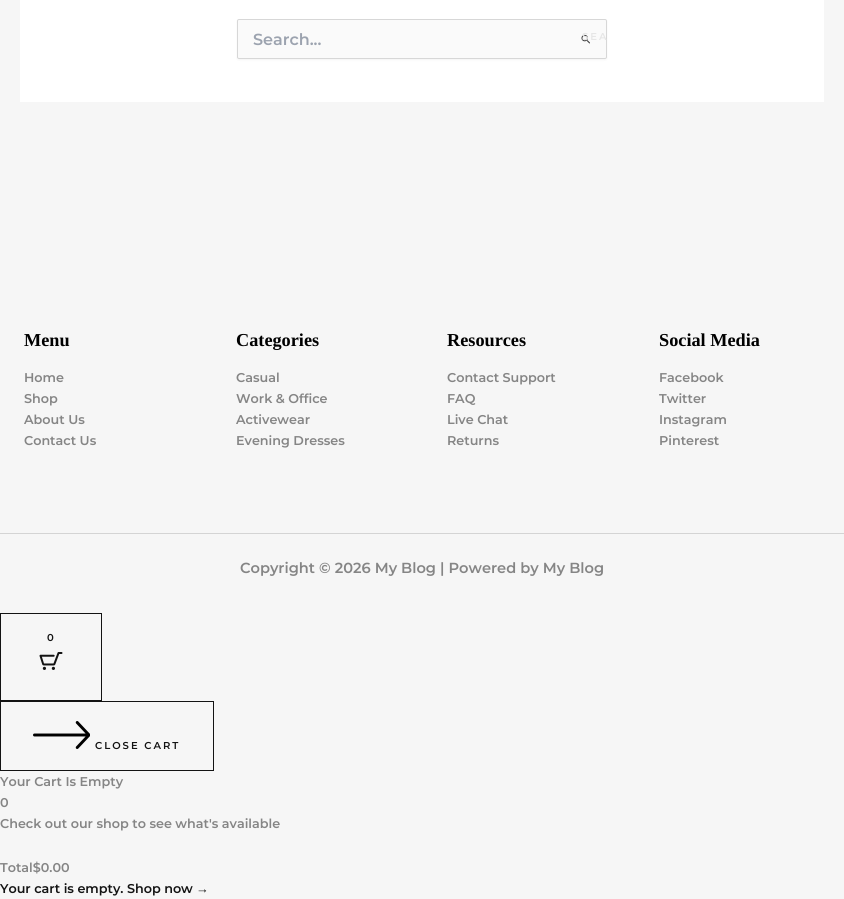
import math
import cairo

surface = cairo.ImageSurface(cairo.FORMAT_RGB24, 844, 899)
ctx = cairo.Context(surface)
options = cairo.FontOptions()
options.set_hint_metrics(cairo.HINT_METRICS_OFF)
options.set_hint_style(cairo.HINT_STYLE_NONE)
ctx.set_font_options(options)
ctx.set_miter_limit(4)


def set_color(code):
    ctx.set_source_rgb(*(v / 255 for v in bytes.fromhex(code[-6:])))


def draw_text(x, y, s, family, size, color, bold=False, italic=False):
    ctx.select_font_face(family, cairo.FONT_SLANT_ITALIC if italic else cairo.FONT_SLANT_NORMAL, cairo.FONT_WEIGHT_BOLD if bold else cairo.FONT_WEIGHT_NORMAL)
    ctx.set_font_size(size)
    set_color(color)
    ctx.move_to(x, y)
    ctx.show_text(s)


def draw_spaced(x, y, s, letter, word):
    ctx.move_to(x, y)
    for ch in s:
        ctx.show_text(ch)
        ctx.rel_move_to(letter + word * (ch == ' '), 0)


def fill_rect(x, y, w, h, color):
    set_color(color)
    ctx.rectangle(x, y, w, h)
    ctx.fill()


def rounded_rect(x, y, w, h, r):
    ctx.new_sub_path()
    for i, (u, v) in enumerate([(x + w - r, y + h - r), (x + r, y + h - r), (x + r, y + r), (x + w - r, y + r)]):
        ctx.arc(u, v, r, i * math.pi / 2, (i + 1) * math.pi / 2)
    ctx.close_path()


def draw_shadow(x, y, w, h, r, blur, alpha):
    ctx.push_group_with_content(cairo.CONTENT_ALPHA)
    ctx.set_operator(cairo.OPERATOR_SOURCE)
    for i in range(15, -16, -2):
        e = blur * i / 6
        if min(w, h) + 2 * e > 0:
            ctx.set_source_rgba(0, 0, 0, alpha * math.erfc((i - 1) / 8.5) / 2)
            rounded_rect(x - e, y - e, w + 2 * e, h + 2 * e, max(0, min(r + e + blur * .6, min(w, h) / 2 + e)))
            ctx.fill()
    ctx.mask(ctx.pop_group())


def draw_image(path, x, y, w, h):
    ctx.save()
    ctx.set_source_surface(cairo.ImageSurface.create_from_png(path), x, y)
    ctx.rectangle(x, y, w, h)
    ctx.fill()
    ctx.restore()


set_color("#f6f6f6")
ctx.paint()
fill_rect(20, 0, 804, 102, "#ffffff")
set_color("#000000")
draw_shadow(237, 20, 370, 40, 2, 1, 0.05)
set_color("#fafafa")
rounded_rect(237.5, 19.5, 369, 39, 1.5)
ctx.fill_preserve()
set_color("#d7d7d7")
ctx.set_line_width(1)
ctx.stroke()
draw_text(253, 45, "Search...", "Montserrat Thin", 16, "#9ca3af")
draw_image("assets/img1.png", 581, 34, 9, 10)
ctx.set_font_size(10)
set_color("#e6e6e6")
draw_spaced(582, 40, "SEA", 2, 0)
draw_text(24, 346, "Menu", "Liberation Serif", 18.25, "#000000", bold=True)
draw_text(24, 382, "Home", "Montserrat Thin", 12.75, "#858585")
draw_text(24, 403, "Shop", "Montserrat Thin", 12.75, "#858585")
draw_text(24, 424, "About Us", "Montserrat Thin", 12.75, "#858585")
draw_text(24, 445, "Contact Us", "Montserrat Thin", 12.75, "#858585")
draw_text(236, 346, "Categories", "Liberation Serif", 18.25, "#000000", bold=True)
draw_text(236, 382, "Casual", "Montserrat Thin", 12.75, "#858585")
draw_text(236, 403, "Work & Office", "Montserrat Thin", 12.75, "#858585")
draw_text(236, 424, "Activewear", "Montserrat Thin", 12.75, "#858585")
draw_text(236, 445, "Evening Dresses", "Montserrat Thin", 12.75, "#858585")
draw_text(447, 346, "Resources", "Liberation Serif", 18.25, "#000000", bold=True)
draw_text(447, 382, "Contact Support", "Montserrat Thin", 12.75, "#858585")
draw_text(447, 403, "FAQ", "Montserrat Thin", 12.75, "#858585")
draw_text(447, 424, "Live Chat", "Montserrat Thin", 12.75, "#858585")
draw_text(447, 445, "Returns", "Montserrat Thin", 12.75, "#858585")
draw_text(659, 346, "Social Media", "Liberation Serif", 18.25, "#000000", bold=True)
draw_text(659, 382, "Facebook", "Montserrat Thin", 12.75, "#858585")
draw_text(659, 403, "Twitter", "Montserrat Thin", 12.75, "#858585")
draw_text(659, 424, "Instagram", "Montserrat Thin", 12.75, "#858585")
draw_text(659, 445, "Pinterest", "Montserrat Thin", 12.75, "#858585")
fill_rect(0, 533, 844, 1, "#d4d4d4")
draw_text(240, 573, "Copyright © 2026 My Blog | Powered by My Blog", "Montserrat Thin", 14.6, "#858585")
ctx.rectangle(0.5, 613.5, 101, 87)
set_color("#131313")
ctx.stroke()
ctx.set_font_size(10)
draw_spaced(47, 641, "0", 2, 0)
draw_image("assets/img2.png", 39, 652, 24, 18)
ctx.rectangle(0.5, 701.5, 213, 69)
ctx.stroke()
draw_image("assets/img3.png", 33, 721, 57, 28)
draw_spaced(95, 749, "CLOSE CART", 2, 0)
draw_text(0, 786, "Your Cart Is Empty", "Montserrat Thin", 12.75, "#858585")
draw_text(0, 807, "0", "Montserrat Thin", 12.75, "#858585")
draw_text(0, 828, "Check out our shop to see what's available", "Montserrat Thin", 12.75, "#858585")
draw_text(0, 872, "Total$0.00", "Montserrat Thin", 12.75, "#858585")
draw_text(0, 893, "Your cart is empty. Shop now", "Montserrat Thin", 12.75, "#131313")
draw_text(196, 893, "→", "Liberation Sans", 12.75, "#131313", bold=True)
surface.write_to_png("output.png")
